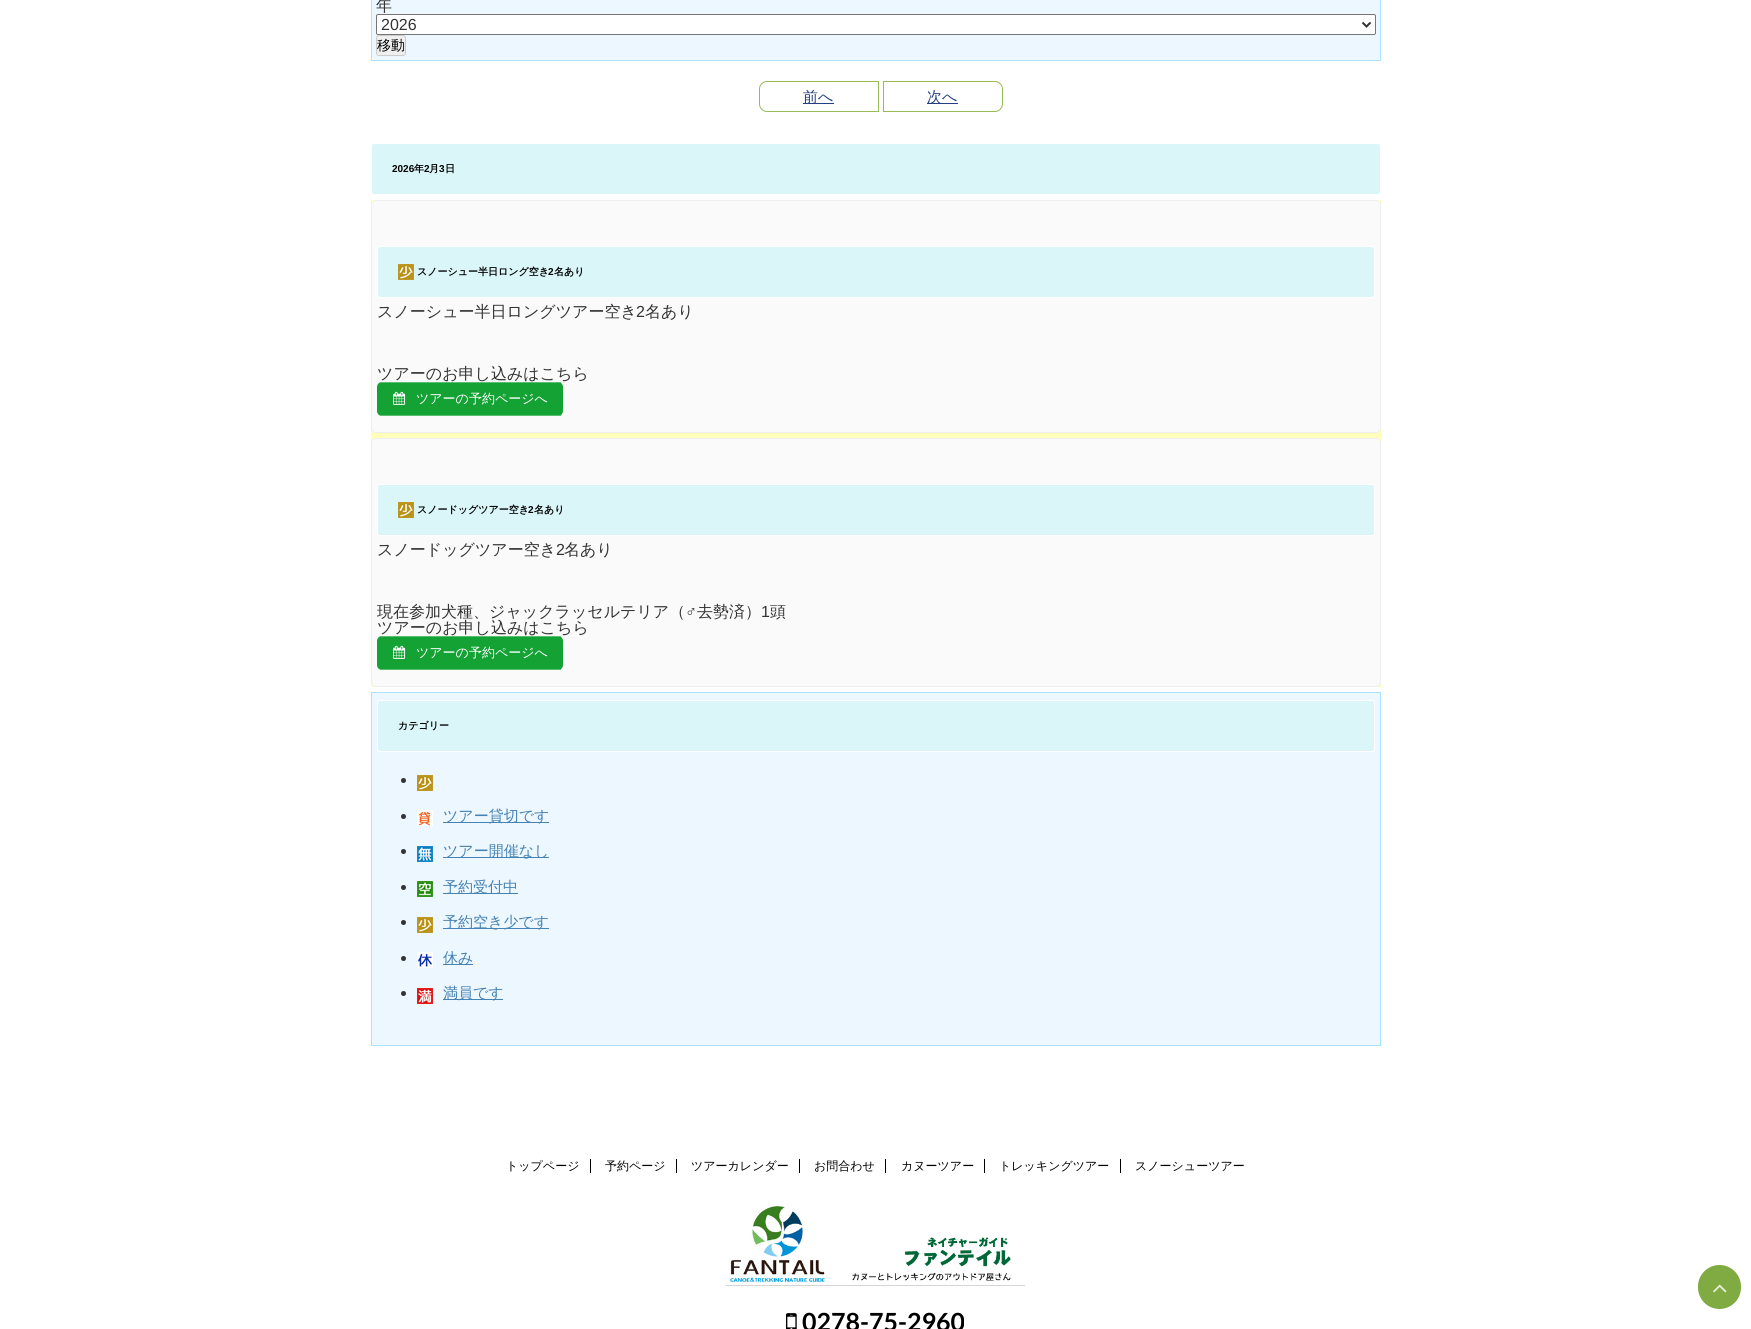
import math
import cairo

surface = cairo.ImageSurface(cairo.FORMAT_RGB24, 1751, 1329)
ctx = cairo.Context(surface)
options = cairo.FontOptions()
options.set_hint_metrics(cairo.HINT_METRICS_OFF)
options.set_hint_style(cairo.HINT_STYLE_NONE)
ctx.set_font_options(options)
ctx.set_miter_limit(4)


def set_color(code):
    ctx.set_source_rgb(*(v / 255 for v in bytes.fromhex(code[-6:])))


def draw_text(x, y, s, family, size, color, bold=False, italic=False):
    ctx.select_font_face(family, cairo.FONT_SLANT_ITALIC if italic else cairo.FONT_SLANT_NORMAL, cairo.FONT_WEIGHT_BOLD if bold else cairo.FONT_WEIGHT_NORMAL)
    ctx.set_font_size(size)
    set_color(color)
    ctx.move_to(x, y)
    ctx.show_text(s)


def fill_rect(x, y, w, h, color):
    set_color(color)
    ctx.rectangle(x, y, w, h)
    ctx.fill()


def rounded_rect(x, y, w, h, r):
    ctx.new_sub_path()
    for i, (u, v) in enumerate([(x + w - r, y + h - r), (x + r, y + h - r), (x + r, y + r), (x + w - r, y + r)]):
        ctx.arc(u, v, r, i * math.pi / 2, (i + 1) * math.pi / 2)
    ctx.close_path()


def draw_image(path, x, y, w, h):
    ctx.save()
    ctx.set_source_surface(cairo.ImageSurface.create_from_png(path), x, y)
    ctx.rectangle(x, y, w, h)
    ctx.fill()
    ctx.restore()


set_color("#ffffff")
ctx.paint()
set_color("#edf7ff")
ctx.rectangle(371.5, -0.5, 1009, 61)
ctx.fill_preserve()
set_color("#a9e3ff")
ctx.set_line_width(1)
ctx.stroke()
draw_text(376, 11, "年", "WenQuanYi Zen Hei Medium", 16, "#333333")
set_color("#ffffff")
rounded_rect(376.5, 14.5, 999, 20, 1.5)
ctx.fill_preserve()
set_color("#767676")
ctx.stroke()
ctx.new_path()
ctx.move_to(1362.5, 22.5)
ctx.line_to(1366.5, 26.5)
ctx.line_to(1370.5, 22.5)
set_color("#333333")
ctx.set_line_width(2)
ctx.stroke()
draw_text(381, 30, "2026", "Liberation Sans", 16, "#333333")
set_color("#efefef")
rounded_rect(376.5, 35.5, 29, 20, 2.5)
ctx.fill_preserve()
set_color("#cccccc")
ctx.set_line_width(1)
ctx.stroke()
ctx.save()
rounded_rect(377, 36, 28, 19, 2)
ctx.clip()
draw_text(377, 50, "移動", "WenQuanYi Zen Hei Medium", 14, "#000000")
ctx.restore()
ctx.new_path()
ctx.move_to(767, 81.5)
ctx.line_to(878.5, 81.5)
ctx.line_to(878.5, 111.5)
ctx.line_to(767, 111.5)
ctx.curve_to(763, 111.5, 759.5, 108, 759.5, 104)
ctx.line_to(759.5, 89)
ctx.curve_to(759.5, 85, 763, 81.5, 767, 81.5)
ctx.close_path()
set_color("#99bb55")
ctx.stroke()
fill_rect(803, 103, 31, 1, "#243f82")
draw_text(803, 102, "前へ", "WenQuanYi Zen Hei Medium", 15, "#243f82")
ctx.new_path()
ctx.move_to(883.5, 81.5)
ctx.line_to(995, 81.5)
ctx.curve_to(999, 81.5, 1002.5, 85, 1002.5, 89)
ctx.line_to(1002.5, 104)
ctx.curve_to(1002.5, 108, 999, 111.5, 995, 111.5)
ctx.line_to(883.5, 111.5)
ctx.close_path()
set_color("#99bb55")
ctx.stroke()
fill_rect(927, 103, 31, 1, "#243f82")
draw_text(927, 102, "次へ", "WenQuanYi Zen Hei Medium", 15, "#243f82")
set_color("#dbf6f9")
rounded_rect(371.5, 143.5, 1009, 51, 2.5)
ctx.fill_preserve()
set_color("#ffffff")
ctx.stroke()
draw_text(392, 172, "2026", "Liberation Sans", 10, "#000000", bold=True)
draw_text(414, 172, "年", "WenQuanYi Zen Hei", 10, "#000000", bold=True)
draw_text(424, 172, "2", "Liberation Sans", 10, "#000000", bold=True)
draw_text(429, 172, "月", "WenQuanYi Zen Hei", 10, "#000000", bold=True)
draw_text(439, 172, "3", "Liberation Sans", 10, "#000000", bold=True)
draw_text(445, 172, "日", "WenQuanYi Zen Hei", 10, "#000000", bold=True)
fill_rect(371, 200, 1010, 487, "#ffffbb")
set_color("#fafafa")
rounded_rect(371.5, 200.5, 1009, 232, 4.5)
ctx.fill_preserve()
set_color("#eeeeee")
ctx.stroke()
set_color("#dbf6f9")
rounded_rect(377.5, 246.5, 997, 51, 2.5)
ctx.fill_preserve()
set_color("#ffffff")
ctx.stroke()
draw_image("assets/img1.png", 398, 264, 16, 16)
draw_text(417, 275, "スノーシュー半日ロング空き", "WenQuanYi Zen Hei", 10, "#000000", bold=True)
draw_text(548, 275, "2", "Liberation Sans", 10, "#000000", bold=True)
draw_text(554, 275, "名あり", "WenQuanYi Zen Hei", 10, "#000000", bold=True)
draw_text(377, 317, "スノーシュー半日ロングツアー空き", "WenQuanYi Zen Hei Medium", 16, "#333333")
draw_text(636, 317, "2", "Liberation Sans", 16, "#333333")
draw_text(645, 317, "名あり", "WenQuanYi Zen Hei Medium", 16, "#333333")
draw_text(377, 379, "ツアーのお申し込みはこちら", "WenQuanYi Zen Hei Medium", 16, "#333333")
set_color("#13a233")
rounded_rect(377, 382, 186, 34, 5)
ctx.fill()
fill_rect(380, 382, 181, 1, "#5abe71")
fill_rect(380, 415, 181, 1, "#5abe71")
draw_image("assets/img2.png", 393, 391, 13, 14)
draw_text(416, 403, "ツアーの予約ページへ", "WenQuanYi Zen Hei Medium", 13, "#ffffff")
set_color("#fafafa")
rounded_rect(371.5, 438.5, 1009, 248, 4.5)
ctx.fill_preserve()
set_color("#eeeeee")
ctx.stroke()
set_color("#dbf6f9")
rounded_rect(377.5, 484.5, 997, 51, 2.5)
ctx.fill_preserve()
set_color("#ffffff")
ctx.stroke()
draw_image("assets/img1.png", 398, 502, 16, 16)
draw_text(417, 513, "スノードッグツアー空き", "WenQuanYi Zen Hei", 10, "#000000", bold=True)
draw_text(528, 513, "2", "Liberation Sans", 10, "#000000", bold=True)
draw_text(534, 513, "名あり", "WenQuanYi Zen Hei", 10, "#000000", bold=True)
draw_text(377, 555, "スノードッグツアー空き", "WenQuanYi Zen Hei Medium", 16, "#333333")
draw_text(556, 555, "2", "Liberation Sans", 16, "#333333")
draw_text(564, 555, "名あり", "WenQuanYi Zen Hei Medium", 16, "#333333")
draw_text(377, 617, "現在参加犬種、ジャックラッセルテリア（", "WenQuanYi Zen Hei Medium", 16, "#333333")
draw_text(685, 617, "♂", "Liberation Sans", 16, "#333333")
draw_text(697, 617, "去勢済）", "WenQuanYi Zen Hei Medium", 16, "#333333")
draw_text(761, 617, "1", "Liberation Sans", 16, "#333333")
draw_text(770, 617, "頭", "WenQuanYi Zen Hei Medium", 16, "#333333")
draw_text(377, 633, "ツアーのお申し込みはこちら", "WenQuanYi Zen Hei Medium", 16, "#333333")
set_color("#13a233")
rounded_rect(377, 636, 186, 34, 5)
ctx.fill()
fill_rect(380, 636, 181, 1, "#5abe71")
fill_rect(380, 669, 181, 1, "#5abe71")
draw_image("assets/img2.png", 393, 645, 13, 14)
draw_text(416, 657, "ツアーの予約ページへ", "WenQuanYi Zen Hei Medium", 13, "#ffffff")
set_color("#edf7ff")
ctx.rectangle(371.5, 692.5, 1009, 353)
ctx.fill_preserve()
set_color("#a9e3ff")
ctx.stroke()
set_color("#dbf6f9")
rounded_rect(377.5, 700.5, 997, 51, 2.5)
ctx.fill_preserve()
set_color("#ffffff")
ctx.stroke()
draw_text(398, 729, "カテゴリー", "WenQuanYi Zen Hei", 10, "#000000", bold=True)
set_color("#333333")
ctx.new_path()
ctx.arc(403.5, 780.5, 2.5, 0, 2 * math.pi)
ctx.fill()
draw_image("assets/img3.png", 417, 775, 16, 16)
ctx.arc(403.5, 816.5, 2.5, 0, 2 * math.pi)
ctx.fill()
draw_image("assets/img4.png", 417, 810, 16, 16)
fill_rect(443, 822, 106, 1, "#4682b4")
draw_text(443, 821, "ツアー貸切です", "WenQuanYi Zen Hei Medium", 15, "#4682b4")
set_color("#333333")
ctx.new_path()
ctx.arc(403.5, 851.5, 2.5, 0, 2 * math.pi)
ctx.fill()
draw_image("assets/img5.png", 417, 846, 16, 16)
fill_rect(443, 857, 106, 1, "#4682b4")
draw_text(443, 856, "ツアー開催なし", "WenQuanYi Zen Hei Medium", 15, "#4682b4")
set_color("#333333")
ctx.new_path()
ctx.arc(403.5, 887.5, 2.5, 0, 2 * math.pi)
ctx.fill()
draw_image("assets/img6.png", 417, 881, 16, 16)
fill_rect(443, 893, 75, 1, "#4682b4")
draw_text(443, 892, "予約受付中", "WenQuanYi Zen Hei Medium", 15, "#4682b4")
set_color("#333333")
ctx.new_path()
ctx.arc(403.5, 922.5, 2.5, 0, 2 * math.pi)
ctx.fill()
draw_image("assets/img3.png", 417, 917, 16, 16)
fill_rect(443, 928, 106, 1, "#4682b4")
draw_text(443, 927, "予約空き少です", "WenQuanYi Zen Hei Medium", 15, "#4682b4")
set_color("#333333")
ctx.new_path()
ctx.arc(403.5, 958.5, 2.5, 0, 2 * math.pi)
ctx.fill()
draw_image("assets/img7.png", 417, 952, 16, 16)
fill_rect(443, 964, 30, 1, "#4682b4")
draw_text(443, 963, "休み", "WenQuanYi Zen Hei Medium", 15, "#4682b4")
set_color("#333333")
ctx.new_path()
ctx.arc(403.5, 993.5, 2.5, 0, 2 * math.pi)
ctx.fill()
draw_image("assets/img8.png", 417, 988, 16, 16)
fill_rect(443, 999, 60, 1, "#4682b4")
draw_text(443, 998, "満員です", "WenQuanYi Zen Hei Medium", 15, "#4682b4")
draw_text(506, 1170, "トップページ", "WenQuanYi Zen Hei Medium", 12, "#000000")
fill_rect(590, 1159, 1, 14, "#000000")
draw_text(605, 1170, "予約ページ", "WenQuanYi Zen Hei Medium", 12, "#000000")
fill_rect(676, 1159, 1, 14, "#000000")
draw_text(691, 1170, "ツアーカレンダー", "WenQuanYi Zen Hei Medium", 12, "#000000")
fill_rect(799, 1159, 1, 14, "#000000")
draw_text(814, 1170, "お問合わせ", "WenQuanYi Zen Hei Medium", 12, "#000000")
fill_rect(885, 1159, 1, 14, "#000000")
draw_text(901, 1170, "カヌーツアー", "WenQuanYi Zen Hei Medium", 12, "#000000")
fill_rect(984, 1159, 1, 14, "#000000")
draw_text(999, 1170, "トレッキングツアー", "WenQuanYi Zen Hei Medium", 12, "#000000")
fill_rect(1120, 1159, 1, 14, "#000000")
draw_text(1135, 1170, "スノーシューツアー", "WenQuanYi Zen Hei Medium", 12, "#000000")
draw_image("assets/img9.png", 726, 1206, 299, 80)
draw_image("assets/img10.png", 786, 1313, 11, 16)
draw_text(802, 1331, "0278-75-2960", "Lato", 25, "#000000", bold=True)
set_color("#80aa42")
rounded_rect(1698, 1265, 43, 44, 21.5)
ctx.fill()
draw_image("assets/img11.png", 1713, 1284, 14, 9)
surface.write_to_png("output.png")
